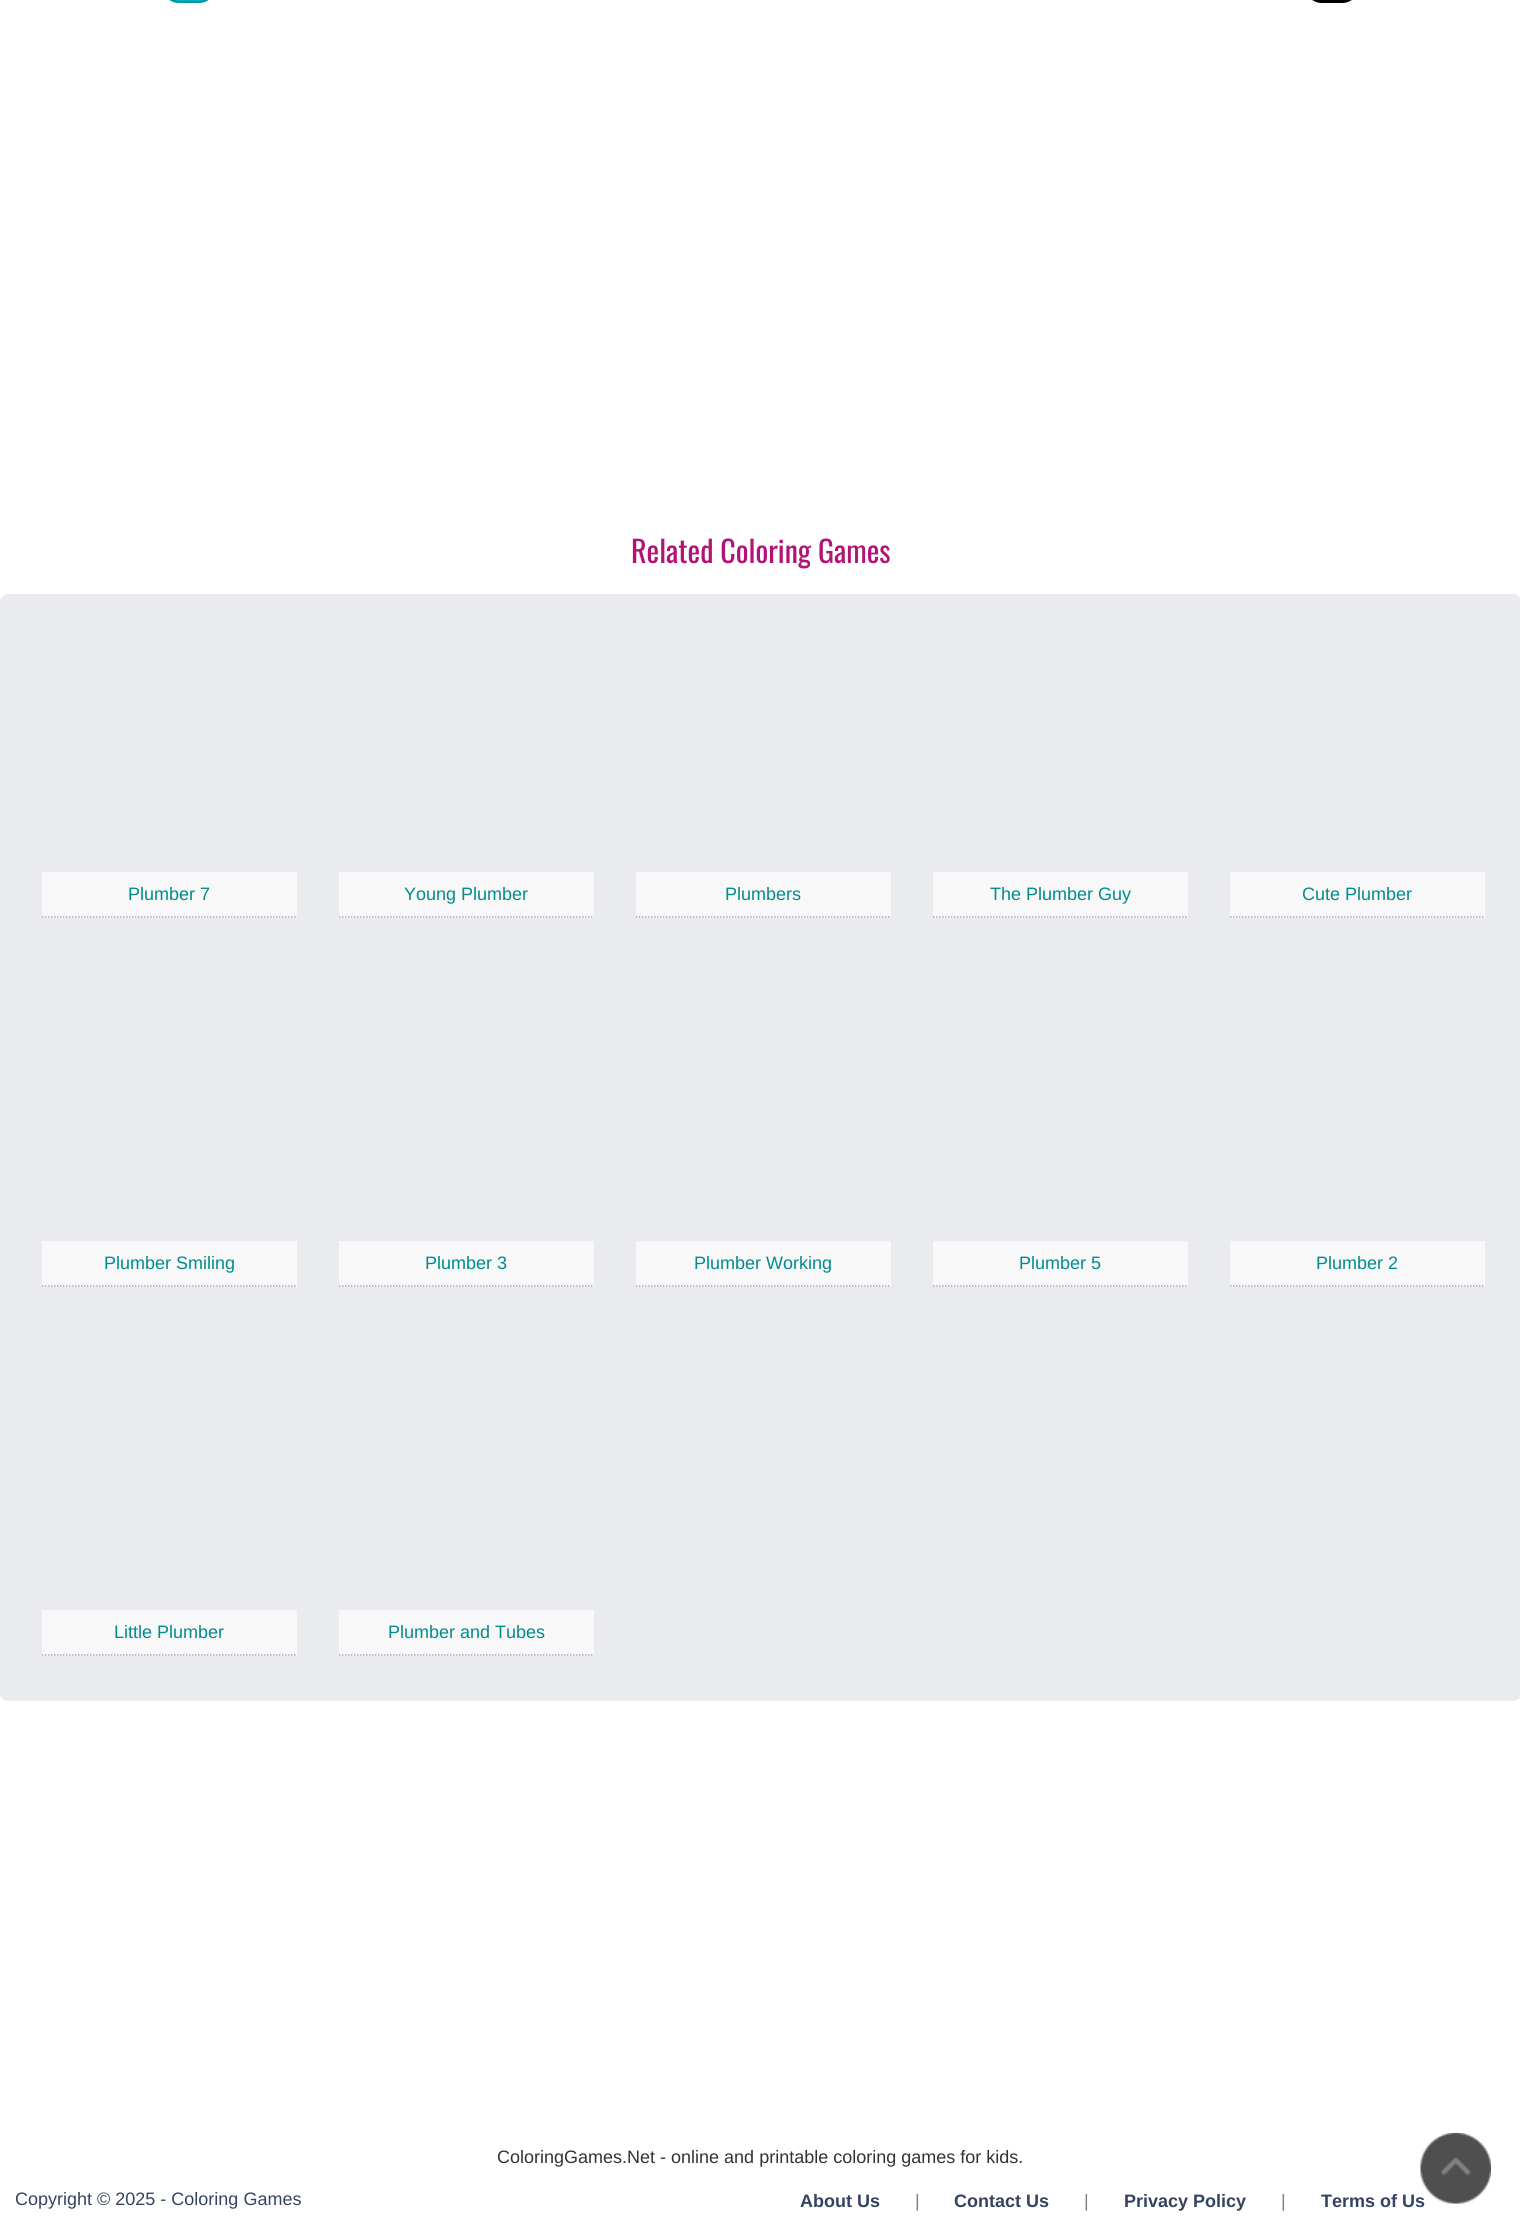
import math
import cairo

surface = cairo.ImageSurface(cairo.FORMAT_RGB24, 1520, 2240)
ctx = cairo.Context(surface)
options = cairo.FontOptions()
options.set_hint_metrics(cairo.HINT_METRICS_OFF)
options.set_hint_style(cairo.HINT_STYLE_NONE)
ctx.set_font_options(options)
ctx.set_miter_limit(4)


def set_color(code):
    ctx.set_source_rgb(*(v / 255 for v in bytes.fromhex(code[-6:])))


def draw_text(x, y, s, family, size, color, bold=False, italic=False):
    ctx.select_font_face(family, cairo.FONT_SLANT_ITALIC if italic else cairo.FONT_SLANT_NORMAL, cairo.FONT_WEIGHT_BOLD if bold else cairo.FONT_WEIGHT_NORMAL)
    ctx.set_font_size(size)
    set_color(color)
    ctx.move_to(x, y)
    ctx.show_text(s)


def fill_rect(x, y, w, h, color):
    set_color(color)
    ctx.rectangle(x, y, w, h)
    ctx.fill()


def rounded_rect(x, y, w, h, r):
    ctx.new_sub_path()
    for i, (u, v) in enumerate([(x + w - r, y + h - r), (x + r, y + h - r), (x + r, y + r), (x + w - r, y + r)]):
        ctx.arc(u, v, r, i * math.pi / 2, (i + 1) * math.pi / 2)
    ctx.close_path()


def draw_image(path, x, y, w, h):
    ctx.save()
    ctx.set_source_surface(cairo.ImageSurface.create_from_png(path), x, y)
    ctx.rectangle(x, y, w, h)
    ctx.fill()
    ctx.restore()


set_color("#ffffff")
ctx.paint()
set_color("#00b2bf")
rounded_rect(162, -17, 54, 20, 17)
ctx.fill()
rounded_rect(163, -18, 52, 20, 16)
ctx.set_source_rgba(0, 0, 0, 0.15)
ctx.stroke()
set_color("#000000")
rounded_rect(1305, -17, 54, 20, 17)
ctx.fill()
rounded_rect(1306, -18, 52, 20, 16)
ctx.set_source_rgba(0, 0, 0, 0.15)
ctx.stroke()
draw_text(631, 563, "Related Coloring Games", "Oswald", 30, "#b41376")
set_color("#eaebee")
rounded_rect(0, 594, 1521, 1107, 8)
ctx.fill()
fill_rect(42, 872, 255, 46, "#f8f8f8")
ctx.new_path()
ctx.move_to(42, 917)
ctx.line_to(297, 917)
set_color("#a9a9a9")
ctx.set_line_width(1.5)
ctx.set_dash([1.5, 1.5])
ctx.stroke()
draw_text(128, 900, "Plumber 7", "Liberation Sans", 18, "#008c8c")
fill_rect(339, 872, 255, 46, "#f8f8f8")
ctx.new_path()
ctx.move_to(339, 917)
ctx.line_to(594, 917)
set_color("#a9a9a9")
ctx.stroke()
draw_text(404, 900, "Young Plumber", "Liberation Sans", 18, "#008c8c")
fill_rect(636, 872, 255, 46, "#f8f8f8")
ctx.new_path()
ctx.move_to(636, 917)
ctx.line_to(891, 917)
set_color("#a9a9a9")
ctx.stroke()
draw_text(725, 900, "Plumbers", "Liberation Sans", 18, "#008c8c")
fill_rect(933, 872, 255, 46, "#f8f8f8")
ctx.new_path()
ctx.move_to(933, 917)
ctx.line_to(1188, 917)
set_color("#a9a9a9")
ctx.stroke()
draw_text(990, 900, "The Plumber Guy", "Liberation Sans", 18, "#008c8c")
fill_rect(1230, 872, 255, 46, "#f8f8f8")
ctx.new_path()
ctx.move_to(1230, 917)
ctx.line_to(1485, 917)
set_color("#a9a9a9")
ctx.stroke()
draw_text(1302, 900, "Cute Plumber", "Liberation Sans", 18, "#008c8c")
fill_rect(42, 1241, 255, 46, "#f8f8f8")
ctx.new_path()
ctx.move_to(42, 1286)
ctx.line_to(297, 1286)
set_color("#a9a9a9")
ctx.stroke()
draw_text(104, 1269, "Plumber Smiling", "Liberation Sans", 18, "#008c8c")
fill_rect(339, 1241, 255, 46, "#f8f8f8")
ctx.new_path()
ctx.move_to(339, 1286)
ctx.line_to(594, 1286)
set_color("#a9a9a9")
ctx.stroke()
draw_text(425, 1269, "Plumber 3", "Liberation Sans", 18, "#008c8c")
fill_rect(636, 1241, 255, 46, "#f8f8f8")
ctx.new_path()
ctx.move_to(636, 1286)
ctx.line_to(891, 1286)
set_color("#a9a9a9")
ctx.stroke()
draw_text(694, 1269, "Plumber Working", "Liberation Sans", 18, "#008c8c")
fill_rect(933, 1241, 255, 46, "#f8f8f8")
ctx.new_path()
ctx.move_to(933, 1286)
ctx.line_to(1188, 1286)
set_color("#a9a9a9")
ctx.stroke()
draw_text(1019, 1269, "Plumber 5", "Liberation Sans", 18, "#008c8c")
fill_rect(1230, 1241, 255, 46, "#f8f8f8")
ctx.new_path()
ctx.move_to(1230, 1286)
ctx.line_to(1485, 1286)
set_color("#a9a9a9")
ctx.stroke()
draw_text(1316, 1269, "Plumber 2", "Liberation Sans", 18, "#008c8c")
fill_rect(42, 1610, 255, 46, "#f8f8f8")
ctx.new_path()
ctx.move_to(42, 1655)
ctx.line_to(297, 1655)
set_color("#a9a9a9")
ctx.stroke()
draw_text(114, 1638, "Little Plumber", "Liberation Sans", 18, "#008c8c")
fill_rect(339, 1610, 255, 46, "#f8f8f8")
ctx.new_path()
ctx.move_to(339, 1655)
ctx.line_to(594, 1655)
set_color("#a9a9a9")
ctx.stroke()
draw_text(388, 1638, "Plumber and Tubes", "Liberation Sans", 18, "#008c8c")
draw_text(497, 2163, "ColoringGames.Net - online and printable coloring games for kids.", "Liberation Sans", 18, "#333333")
draw_text(15, 2205, "Copyright © 2025 - Coloring Games", "Liberation Sans", 18, "#354360")
draw_text(800, 2207, "About Us", "Liberation Sans", 18, "#354360", bold=True)
draw_text(915, 2207, "|", "Liberation Sans", 18, "#808080")
draw_text(954, 2207, "Contact Us", "Liberation Sans", 18, "#354360", bold=True)
draw_text(1084, 2207, "|", "Liberation Sans", 18, "#808080")
draw_text(1124, 2207, "Privacy Policy", "Liberation Sans", 18, "#354360", bold=True)
draw_text(1281, 2207, "|", "Liberation Sans", 18, "#808080")
draw_text(1321, 2207, "Terms of Us", "Liberation Sans", 18, "#354360", bold=True)
draw_image("assets/img1.png", 1420, 2133, 71, 71)
surface.write_to_png("output.png")
